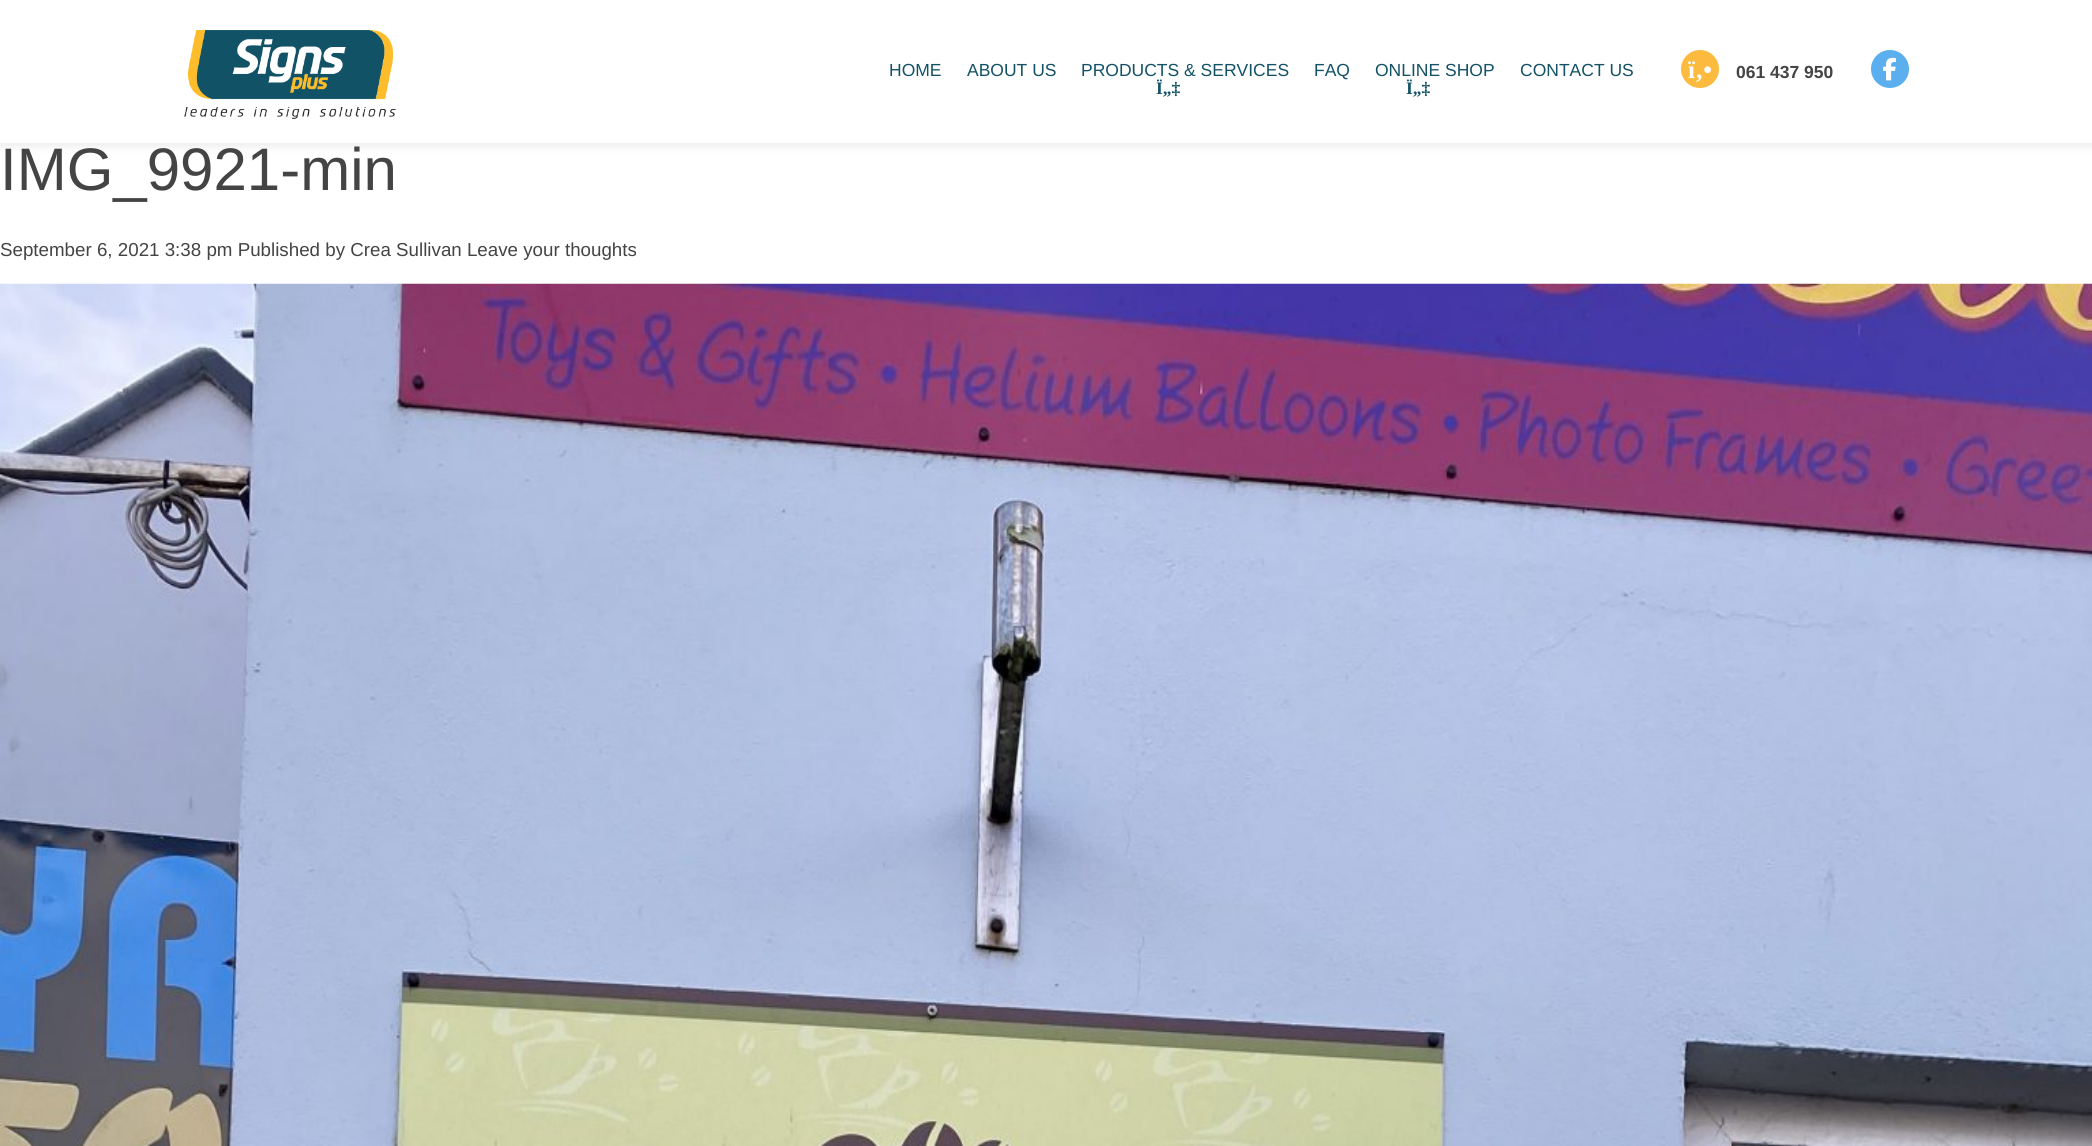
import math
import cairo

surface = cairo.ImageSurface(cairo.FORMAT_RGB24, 2092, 1146)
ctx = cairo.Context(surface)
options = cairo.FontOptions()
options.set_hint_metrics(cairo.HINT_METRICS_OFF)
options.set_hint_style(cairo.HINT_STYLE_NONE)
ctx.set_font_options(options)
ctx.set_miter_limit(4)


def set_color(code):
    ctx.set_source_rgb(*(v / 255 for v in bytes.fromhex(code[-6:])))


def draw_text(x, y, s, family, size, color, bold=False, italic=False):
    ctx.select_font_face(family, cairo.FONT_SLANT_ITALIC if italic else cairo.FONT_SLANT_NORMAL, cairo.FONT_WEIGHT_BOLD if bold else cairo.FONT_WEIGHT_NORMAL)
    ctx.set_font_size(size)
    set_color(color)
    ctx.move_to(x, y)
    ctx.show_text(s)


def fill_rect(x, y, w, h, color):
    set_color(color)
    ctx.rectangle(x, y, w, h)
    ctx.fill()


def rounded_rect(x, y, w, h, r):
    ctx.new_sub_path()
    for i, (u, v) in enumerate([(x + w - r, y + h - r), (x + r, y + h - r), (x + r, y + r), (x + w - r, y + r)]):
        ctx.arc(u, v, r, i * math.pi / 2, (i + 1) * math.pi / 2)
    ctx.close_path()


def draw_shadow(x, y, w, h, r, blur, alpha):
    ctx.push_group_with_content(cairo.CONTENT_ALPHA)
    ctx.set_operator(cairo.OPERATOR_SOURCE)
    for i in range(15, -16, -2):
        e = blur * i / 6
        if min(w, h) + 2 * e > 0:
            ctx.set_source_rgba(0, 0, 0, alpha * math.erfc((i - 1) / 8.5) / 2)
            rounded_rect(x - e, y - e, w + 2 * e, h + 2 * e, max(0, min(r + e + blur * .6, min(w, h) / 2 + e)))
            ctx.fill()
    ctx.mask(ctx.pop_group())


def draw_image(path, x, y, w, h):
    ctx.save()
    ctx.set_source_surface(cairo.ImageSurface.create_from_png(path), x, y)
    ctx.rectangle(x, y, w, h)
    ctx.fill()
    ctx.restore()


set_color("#ffffff")
ctx.paint()
set_color("#000000")
draw_shadow(-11, -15, 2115, 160, 0, 5, 0.1)
fill_rect(0, 0, 2092, 143, "#ffffff")
draw_image("assets/img1.png", 184, 30, 212, 89)
draw_text(889, 76, "HOME", "Liberation Sans", 17.5, "#135266")
draw_text(967, 76, "ABOUT US", "Liberation Sans", 17.5, "#135266")
draw_text(1081, 76, "PRODUCTS & SERVICES", "Liberation Sans", 17.5, "#135266")
draw_text(1156, 94, "Ï„‡", "Liberation Serif", 17.5, "#135266", bold=True)
draw_text(1314, 76, "FAQ", "Liberation Sans", 17.5, "#135266")
draw_text(1375, 76, "ONLINE SHOP", "Liberation Sans", 17.5, "#135266")
draw_text(1406, 94, "Ï„‡", "Liberation Serif", 17.5, "#135266", bold=True)
draw_text(1520, 76, "CONTACT US", "Liberation Sans", 17.5, "#135266")
set_color("#fcbb3f")
ctx.new_path()
ctx.arc(1700, 69, 19, 0, 2 * math.pi)
ctx.fill()
draw_text(1688, 78, "ï‚•", "Liberation Serif", 25, "#ffffff", bold=True)
draw_text(1736, 78, "061 437 950", "Liberation Sans", 17.5, "#444444", bold=True)
set_color("#5bafef")
ctx.new_path()
ctx.arc(1890, 69, 19, 0, 2 * math.pi)
ctx.fill()
draw_image("assets/img2.png", 1883, 57, 13, 24)
draw_text(0, 190, "IMG_9921-min", "Liberation Sans", 60, "#444444")
draw_text(0, 256, "September 6, 2021 3:38 pm Published by Crea Sullivan Leave your thoughts", "Liberation Sans", 18.75, "#444444")
draw_image("assets/img3.png", 0, 283, 2092, 863)
surface.write_to_png("output.png")
